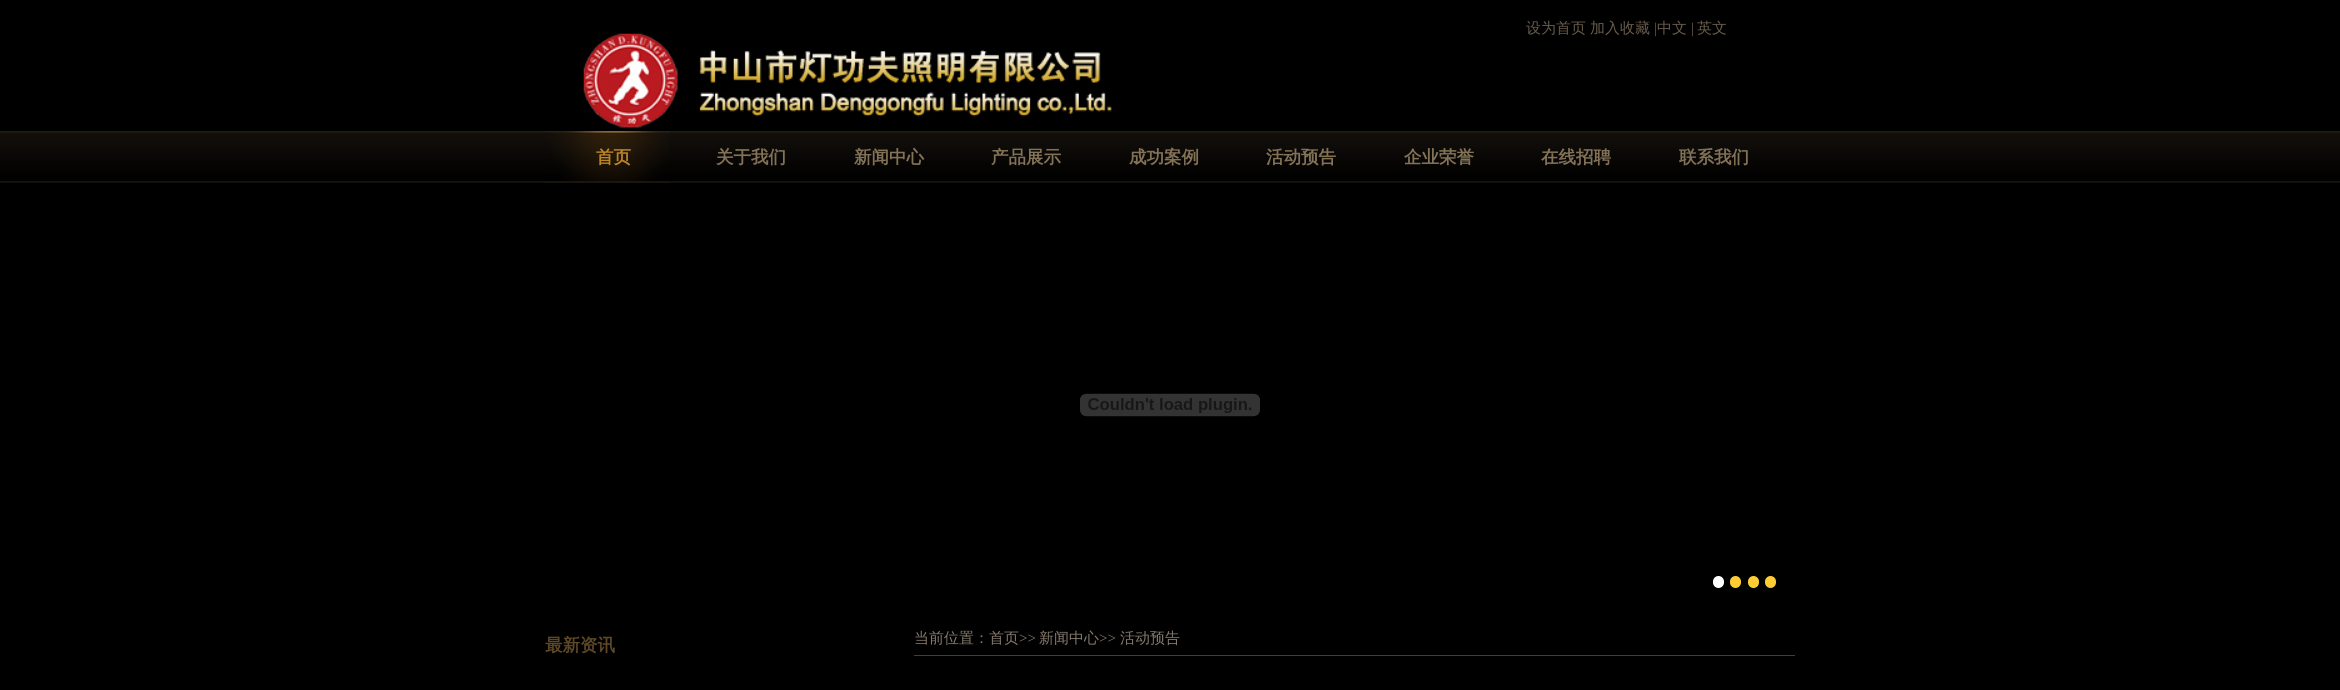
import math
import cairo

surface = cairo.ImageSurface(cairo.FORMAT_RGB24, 2340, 690)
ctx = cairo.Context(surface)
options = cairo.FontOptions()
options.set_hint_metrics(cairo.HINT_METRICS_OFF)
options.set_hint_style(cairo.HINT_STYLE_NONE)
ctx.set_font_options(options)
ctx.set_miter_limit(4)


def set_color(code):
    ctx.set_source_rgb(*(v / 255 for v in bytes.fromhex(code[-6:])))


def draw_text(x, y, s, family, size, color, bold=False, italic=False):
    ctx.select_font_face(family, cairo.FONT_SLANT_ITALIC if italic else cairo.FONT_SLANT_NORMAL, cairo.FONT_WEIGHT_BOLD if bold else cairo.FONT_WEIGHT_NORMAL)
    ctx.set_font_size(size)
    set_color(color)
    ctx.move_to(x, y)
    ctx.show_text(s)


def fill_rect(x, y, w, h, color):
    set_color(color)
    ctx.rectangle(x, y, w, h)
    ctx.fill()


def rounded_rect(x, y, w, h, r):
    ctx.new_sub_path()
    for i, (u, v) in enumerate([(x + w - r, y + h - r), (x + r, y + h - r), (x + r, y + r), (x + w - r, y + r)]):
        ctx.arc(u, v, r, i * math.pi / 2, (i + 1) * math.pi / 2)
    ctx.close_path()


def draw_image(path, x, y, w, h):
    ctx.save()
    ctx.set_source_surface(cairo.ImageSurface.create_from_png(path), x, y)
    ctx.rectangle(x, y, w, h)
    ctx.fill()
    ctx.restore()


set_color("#000000")
ctx.paint()
draw_text(1526, 33, "设为首页", "WenQuanYi Zen Hei Medium", 15, "#675b4b")
draw_text(1590, 33, "加入收藏", "WenQuanYi Zen Hei Medium", 15, "#675b4b")
draw_text(1654, 33, "|", "Liberation Serif", 15, "#675b4b")
draw_text(1657, 33, "中文", "WenQuanYi Zen Hei Medium", 15, "#675b4b")
draw_text(1691, 33, "|", "Liberation Serif", 15, "#675b4b")
draw_text(1697, 33, "英文", "WenQuanYi Zen Hei Medium", 15, "#675b4b")
draw_image("assets/img1.png", 580, 33, 539, 97)
draw_image("assets/img2.png", 0, 131, 2340, 52)
draw_image("assets/img3.png", 545, 131, 125, 52)
draw_text(596, 163, "首页", "WenQuanYi Zen Hei", 17.5, "#bc8527", bold=True)
draw_text(716, 163, "关于我们", "WenQuanYi Zen Hei", 17.5, "#837256", bold=True)
draw_text(854, 163, "新闻中心", "WenQuanYi Zen Hei", 17.5, "#837256", bold=True)
draw_text(991, 163, "产品展示", "WenQuanYi Zen Hei", 17.5, "#837256", bold=True)
draw_text(1129, 163, "成功案例", "WenQuanYi Zen Hei", 17.5, "#837256", bold=True)
draw_text(1266, 163, "活动预告", "WenQuanYi Zen Hei", 17.5, "#837256", bold=True)
draw_text(1404, 163, "企业荣誉", "WenQuanYi Zen Hei", 17.5, "#837256", bold=True)
draw_text(1541, 163, "在线招聘", "WenQuanYi Zen Hei", 17.5, "#837256", bold=True)
draw_text(1679, 163, "联系我们", "WenQuanYi Zen Hei", 17.5, "#837256", bold=True)
draw_image("assets/img4.png", 1080, 393, 180, 24)
set_color("#ffffff")
rounded_rect(1713, 576, 11, 12, 5.5)
ctx.fill()
set_color("#ffcc33")
rounded_rect(1730, 576, 11, 12, 5.5)
ctx.fill()
rounded_rect(1748, 576, 11, 12, 5.5)
ctx.fill()
rounded_rect(1765, 576, 11, 12, 5.5)
ctx.fill()
draw_text(545, 651, "最新资讯", "WenQuanYi Zen Hei", 17.5, "#5d4825", bold=True)
fill_rect(914, 655, 881, 1, "#453d35")
draw_text(914, 643, "当前位置：首页", "WenQuanYi Zen Hei Medium", 15, "#857b6e")
draw_text(1019, 643, ">>", "Liberation Serif", 15, "#857b6e")
draw_text(1039, 643, "新闻中心", "WenQuanYi Zen Hei Medium", 15, "#857b6e")
draw_text(1099, 643, ">>", "Liberation Serif", 15, "#857b6e")
draw_text(1120, 643, "活动预告", "WenQuanYi Zen Hei Medium", 15, "#857b6e")
surface.write_to_png("output.png")
